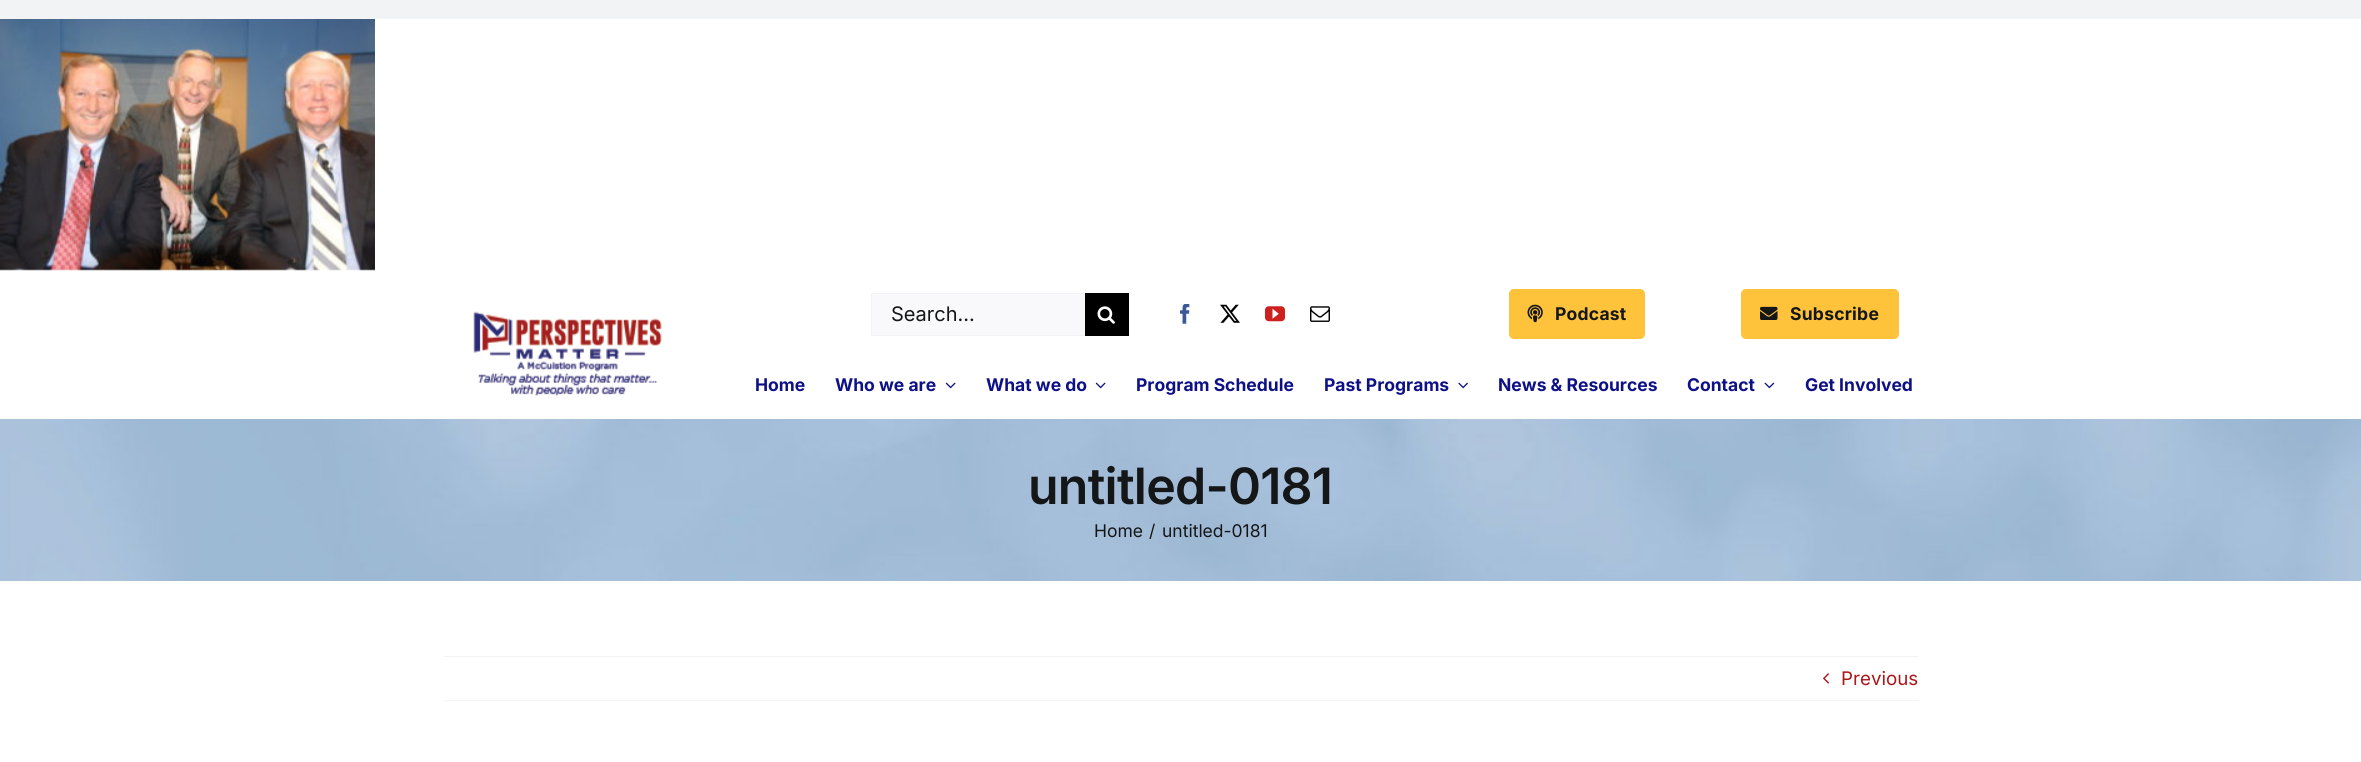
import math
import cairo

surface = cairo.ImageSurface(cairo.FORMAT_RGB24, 2361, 762)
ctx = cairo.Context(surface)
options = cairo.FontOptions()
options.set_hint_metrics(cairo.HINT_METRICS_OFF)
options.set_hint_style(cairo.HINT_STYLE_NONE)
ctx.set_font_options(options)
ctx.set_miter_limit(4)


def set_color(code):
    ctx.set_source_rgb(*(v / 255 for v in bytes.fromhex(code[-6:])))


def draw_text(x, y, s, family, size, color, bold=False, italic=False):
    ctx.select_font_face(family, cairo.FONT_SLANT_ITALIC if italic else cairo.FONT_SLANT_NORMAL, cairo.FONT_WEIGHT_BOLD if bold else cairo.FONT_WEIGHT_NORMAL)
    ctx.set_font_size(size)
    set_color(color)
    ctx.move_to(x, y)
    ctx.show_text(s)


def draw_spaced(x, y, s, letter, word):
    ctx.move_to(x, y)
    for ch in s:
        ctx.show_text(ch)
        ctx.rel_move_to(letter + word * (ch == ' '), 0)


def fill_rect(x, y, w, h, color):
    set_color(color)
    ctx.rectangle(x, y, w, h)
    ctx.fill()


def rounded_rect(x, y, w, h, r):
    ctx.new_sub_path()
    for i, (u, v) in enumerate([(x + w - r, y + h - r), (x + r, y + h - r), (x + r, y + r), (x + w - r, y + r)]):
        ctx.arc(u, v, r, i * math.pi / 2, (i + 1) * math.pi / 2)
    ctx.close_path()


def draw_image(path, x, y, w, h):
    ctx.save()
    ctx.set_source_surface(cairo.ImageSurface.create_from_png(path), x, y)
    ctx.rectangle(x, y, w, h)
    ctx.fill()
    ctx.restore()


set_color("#f2f3f5")
ctx.paint()
fill_rect(0, 19, 2361, 400, "#ffffff")
draw_image("assets/img1.png", 0, 19, 375, 252)
draw_image("assets/img2.png", 473, 311, 189, 85)
fill_rect(872, 294, 213, 41, "#f9f9fb")
fill_rect(871, 293, 214, 1, "#f2f3f5")
fill_rect(871, 335, 214, 1, "#f2f3f5")
fill_rect(871, 293, 1, 43, "#f2f3f5")
draw_text(891, 321, "Search...", "Inter", 20, "#141617")
fill_rect(1085, 293, 44, 43, "#000000")
draw_image("assets/img3.png", 1097, 306, 18, 18)
draw_image("assets/img4.png", 1180, 304, 10, 20)
draw_image("assets/img5.png", 1220, 304, 20, 19)
draw_image("assets/img6.png", 1265, 306, 20, 16)
draw_image("assets/img7.png", 1310, 306, 20, 16)
set_color("#fec23b")
rounded_rect(1509, 289, 136, 50, 5)
ctx.fill()
draw_image("assets/img8.png", 1527, 304, 16, 19)
ctx.select_font_face("Inter", cairo.FONT_SLANT_NORMAL, cairo.FONT_WEIGHT_BOLD)
ctx.set_font_size(17.5)
set_color("#141617")
draw_spaced(1555, 320, "Podcast", 0.25, 0)
set_color("#fec23b")
rounded_rect(1741, 289, 158, 50, 5)
ctx.fill()
draw_image("assets/img9.png", 1760, 306, 18, 14)
set_color("#141617")
draw_spaced(1790, 320, "Subscribe", 0.25, 0)
draw_text(755, 391, "Home", "Inter", 17.5, "#0e1186", bold=True)
draw_text(835, 391, "Who we are", "Inter", 17.5, "#0e1186", bold=True)
draw_image("assets/img10.png", 945, 382, 11, 7)
draw_text(986, 391, "What we do", "Inter", 17.5, "#0e1186", bold=True)
draw_image("assets/img10.png", 1095, 382, 11, 7)
draw_text(1136, 391, "Program Schedule", "Inter", 17.5, "#0e1186", bold=True)
draw_text(1324, 391, "Past Programs", "Inter", 17.5, "#0e1186", bold=True)
draw_image("assets/img11.png", 1458, 382, 10, 7)
draw_text(1498, 391, "News & Resources", "Inter", 17.5, "#0e1186", bold=True)
draw_text(1687, 391, "Contact", "Inter", 17.5, "#0e1186", bold=True)
draw_image("assets/img12.png", 1764, 382, 11, 7)
draw_text(1805, 391, "Get Involved", "Inter", 17.5, "#0e1186", bold=True)
draw_image("assets/img13.png", 0, 419, 2361, 162)
ctx.select_font_face("Inter SemiBold")
ctx.set_font_size(50)
set_color("#141617")
draw_spaced(1028, 504, "untitled-0181", -0.75, 0)
draw_text(1094, 537, "Home", "Inter", 17.5, "#141617")
draw_text(1149, 537, "/", "Inter", 17.5, "#141617")
draw_text(1162, 537, "untitled-0181", "Inter", 17.5, "#141617")
fill_rect(0, 581, 2361, 181, "#ffffff")
fill_rect(444, 656, 1475, 1, "#f2f3f5")
fill_rect(444, 700, 1475, 1, "#f2f3f5")
draw_image("assets/img14.png", 1823, 673, 6, 11)
draw_text(1841, 685, "Previous", "Inter", 18.75, "#ab181c")
surface.write_to_png("output.png")
